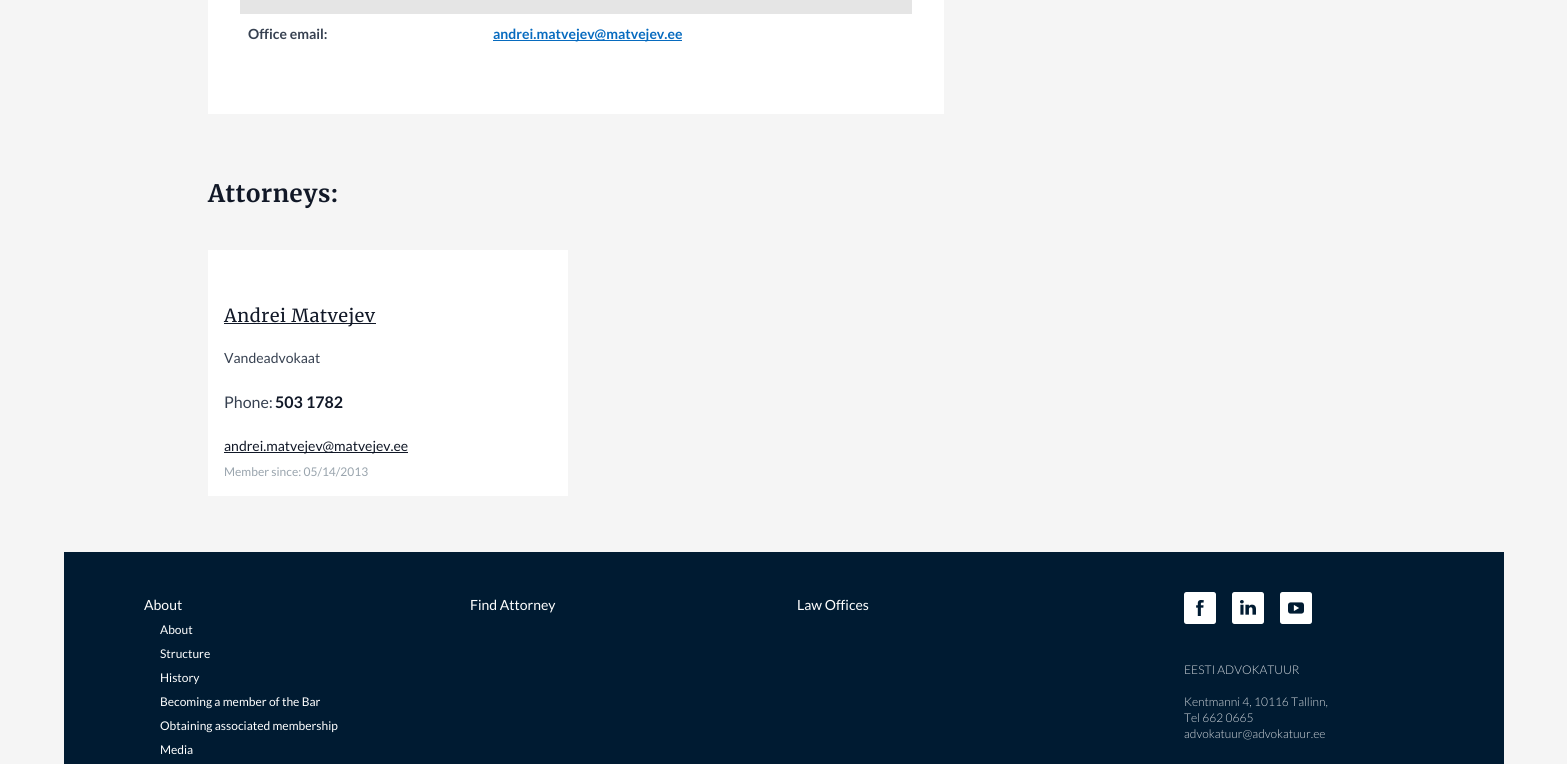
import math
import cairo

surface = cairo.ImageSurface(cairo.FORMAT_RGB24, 1567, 764)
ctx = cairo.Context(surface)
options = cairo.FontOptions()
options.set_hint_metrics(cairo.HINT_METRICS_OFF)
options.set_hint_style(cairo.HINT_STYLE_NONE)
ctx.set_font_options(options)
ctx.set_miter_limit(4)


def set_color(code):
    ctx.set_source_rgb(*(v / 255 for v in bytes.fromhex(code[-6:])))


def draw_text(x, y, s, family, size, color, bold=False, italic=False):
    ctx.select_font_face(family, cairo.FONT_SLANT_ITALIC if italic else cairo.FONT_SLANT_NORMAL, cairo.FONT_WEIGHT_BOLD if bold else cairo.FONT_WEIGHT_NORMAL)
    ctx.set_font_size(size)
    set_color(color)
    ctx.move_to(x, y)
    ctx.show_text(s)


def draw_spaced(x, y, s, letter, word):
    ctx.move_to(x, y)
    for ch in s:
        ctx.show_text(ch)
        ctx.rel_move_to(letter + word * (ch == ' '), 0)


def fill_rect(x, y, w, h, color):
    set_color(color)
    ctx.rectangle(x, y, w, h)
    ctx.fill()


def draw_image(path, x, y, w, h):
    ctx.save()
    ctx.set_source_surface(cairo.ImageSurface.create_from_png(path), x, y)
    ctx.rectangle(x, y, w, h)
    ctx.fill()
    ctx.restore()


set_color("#f5f5f5")
ctx.paint()
fill_rect(208, 0, 736, 114, "#ffffff")
fill_rect(240, 0, 672, 14, "#e5e5e5")
draw_text(248, 39, "Office email:", "Lato", 14, "#374151", bold=True)
fill_rect(493, 40, 189, 1, "#076bbf")
draw_text(493, 39, "andrei.matvejev@matvejev.ee", "Lato", 14, "#076bbf", bold=True)
ctx.select_font_face("Merriweather", cairo.FONT_SLANT_NORMAL, cairo.FONT_WEIGHT_BOLD)
ctx.set_font_size(24)
set_color("#111827")
draw_spaced(208, 202, "Attorneys:", 0.6, 0)
fill_rect(208, 250, 360, 246, "#ffffff")
fill_rect(224, 323, 152, 1, "#111827")
ctx.select_font_face("Merriweather")
ctx.set_font_size(18)
draw_spaced(224, 322, "Andrei Matvejev", 0.6, 0)
draw_text(224, 363, "Vandeadvokaat", "Lato", 14, "#374151")
draw_text(224, 408, "Phone:", "Lato", 16, "#374151")
draw_text(275, 408, "503 1782", "Lato", 16, "#111827", bold=True)
fill_rect(224, 452, 184, 1, "#111827")
draw_text(224, 451, "andrei.matvejev@matvejev.ee", "Lato", 14, "#111827")
draw_text(224, 476, "Member since: 05/14/2013", "Lato", 12, "#99a4ad")
fill_rect(64, 552, 1440, 212, "#001b32")
draw_text(144, 610, "About", "Lato", 14, "#ffffff")
draw_text(160, 634, "About", "Lato", 12, "#ffffff")
draw_text(160, 658, "Structure", "Lato", 12, "#ffffff")
draw_text(160, 682, "History", "Lato", 12, "#ffffff")
draw_text(160, 706, "Becoming a member of the Bar", "Lato", 12, "#ffffff")
draw_text(160, 730, "Obtaining associated membership", "Lato", 12, "#ffffff")
draw_text(160, 754, "Media", "Lato", 12, "#ffffff")
draw_text(470, 610, "Find Attorney", "Lato", 14, "#ffffff")
draw_text(797, 610, "Law Offices", "Lato", 14, "#ffffff")
draw_image("assets/img1.png", 1184, 592, 32, 32)
draw_image("assets/img2.png", 1232, 592, 32, 32)
draw_image("assets/img3.png", 1280, 592, 32, 32)
draw_text(1184, 674, "EESTI ADVOKATUUR", "Lato Light", 12, "#d5dadf")
draw_text(1184, 706, "Kentmanni 4, 10116 Tallinn,", "Lato Light", 12, "#d5dadf")
draw_text(1184, 722, "Tel 662 0665", "Lato Light", 12, "#d5dadf")
draw_text(1184, 738, "advokatuur@advokatuur.ee", "Lato Light", 12, "#d5dadf")
surface.write_to_png("output.png")
